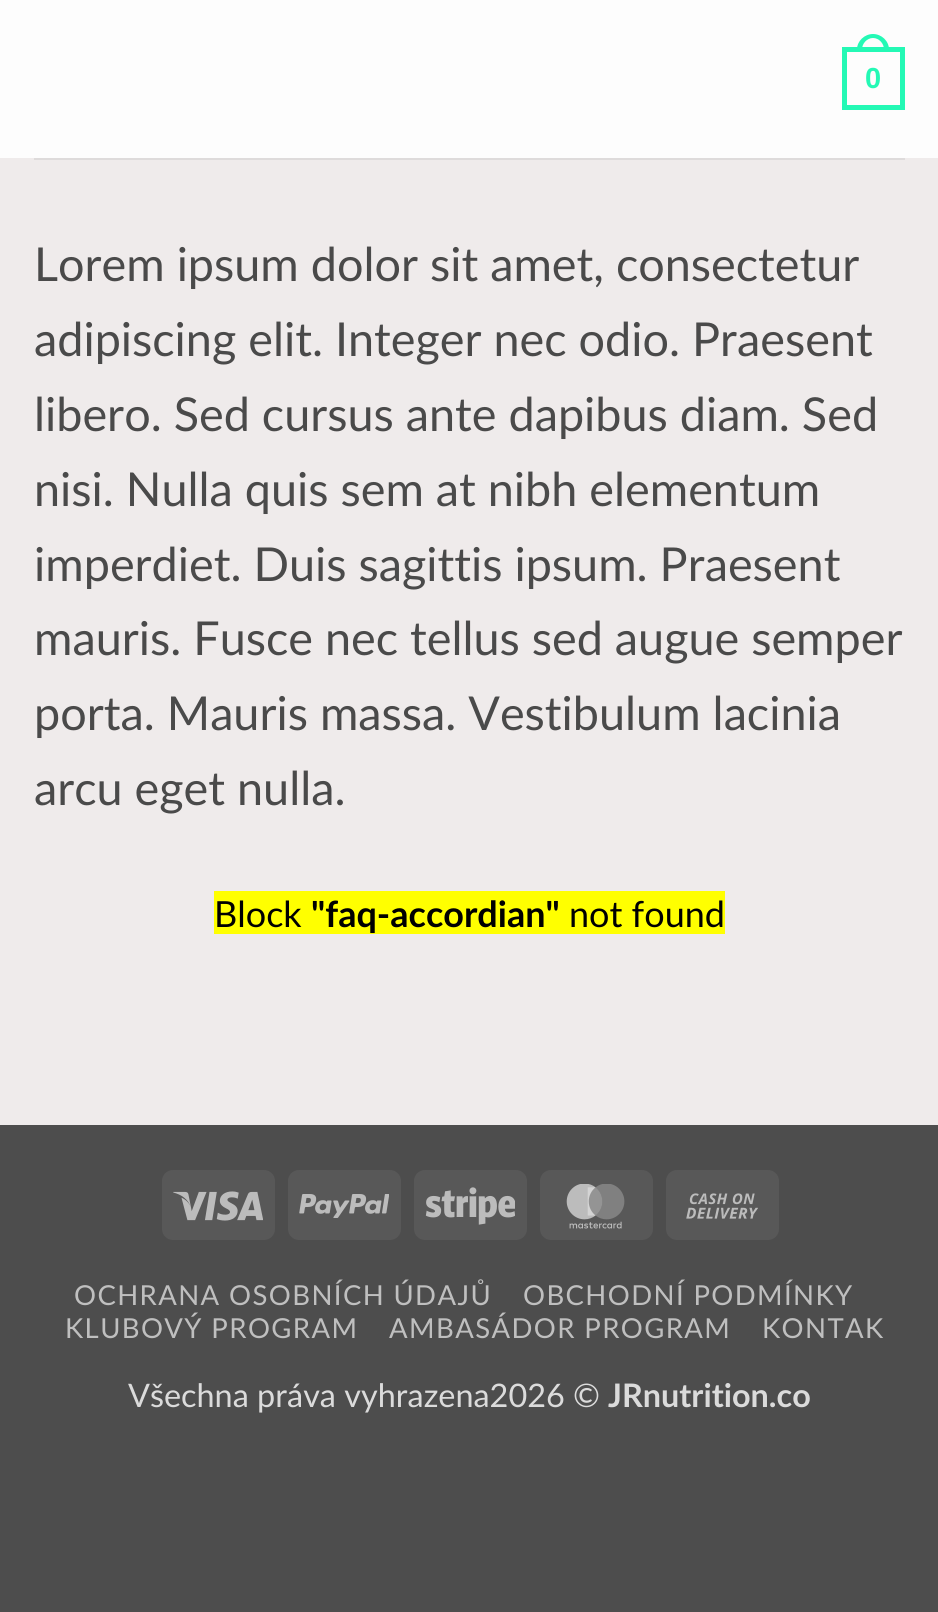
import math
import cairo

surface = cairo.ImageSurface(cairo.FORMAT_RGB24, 938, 1612)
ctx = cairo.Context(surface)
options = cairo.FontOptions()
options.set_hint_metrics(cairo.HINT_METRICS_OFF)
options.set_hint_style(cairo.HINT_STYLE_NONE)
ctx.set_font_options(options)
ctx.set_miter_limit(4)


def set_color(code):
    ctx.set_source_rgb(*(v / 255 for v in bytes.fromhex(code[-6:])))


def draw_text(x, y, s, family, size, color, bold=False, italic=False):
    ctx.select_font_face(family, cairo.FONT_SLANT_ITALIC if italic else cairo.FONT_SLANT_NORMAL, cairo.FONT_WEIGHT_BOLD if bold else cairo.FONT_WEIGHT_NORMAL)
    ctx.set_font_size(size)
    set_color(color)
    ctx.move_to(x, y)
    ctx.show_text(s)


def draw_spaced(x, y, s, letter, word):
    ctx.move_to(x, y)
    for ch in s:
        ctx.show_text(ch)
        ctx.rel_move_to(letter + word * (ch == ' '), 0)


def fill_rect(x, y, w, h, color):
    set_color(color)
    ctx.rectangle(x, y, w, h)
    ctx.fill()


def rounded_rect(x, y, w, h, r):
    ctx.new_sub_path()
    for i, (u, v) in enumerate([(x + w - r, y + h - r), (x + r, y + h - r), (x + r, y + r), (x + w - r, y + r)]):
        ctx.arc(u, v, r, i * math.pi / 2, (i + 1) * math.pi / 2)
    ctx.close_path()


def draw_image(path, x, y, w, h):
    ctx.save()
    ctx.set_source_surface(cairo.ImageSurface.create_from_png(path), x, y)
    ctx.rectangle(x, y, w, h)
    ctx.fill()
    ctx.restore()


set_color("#4d4d4d")
ctx.paint()
fill_rect(0, 158, 938, 967, "#efebeb")
fill_rect(0, 0, 938, 158, "#fdfdfd")
ctx.rectangle(844.5, 49.5, 58, 58)
set_color("#24f9b5")
ctx.set_line_width(5)
ctx.stroke()
ctx.set_fill_rule(cairo.FILL_RULE_EVEN_ODD)
ctx.new_path()
ctx.move_to(873, 34)
ctx.curve_to(881.5, 34, 889, 41, 889, 49.5)
ctx.line_to(889, 52)
ctx.line_to(857, 52)
ctx.line_to(857, 49.5)
ctx.curve_to(857, 41, 864.5, 34, 873, 34)
ctx.close_path()
ctx.move_to(873, 38)
ctx.curve_to(879, 38, 884, 43.5, 884, 49.5)
ctx.line_to(884, 52)
ctx.line_to(862, 52)
ctx.line_to(862, 49.5)
ctx.curve_to(862, 43.5, 867, 38, 873, 38)
ctx.close_path()
ctx.fill()
draw_text(865, 88, "0", "Liberation Sans", 29, "#24f9b5", bold=True)
fill_rect(34, 158, 871, 2, "#dedbdb")
draw_text(34, 281, "Lorem ipsum dolor sit amet, consectetur", "Lato", 46.75, "#4a4a4a")
draw_text(34, 356, "adipiscing elit. Integer nec odio. Praesent", "Lato", 46.75, "#4a4a4a")
draw_text(34, 431, "libero. Sed cursus ante dapibus diam. Sed", "Lato", 46.75, "#4a4a4a")
draw_text(34, 506, "nisi. Nulla quis sem at nibh elementum", "Lato", 46.75, "#4a4a4a")
draw_text(34, 581, "imperdiet. Duis sagittis ipsum. Praesent", "Lato", 46.75, "#4a4a4a")
draw_text(34, 655, "mauris. Fusce nec tellus sed augue semper", "Lato", 46.75, "#4a4a4a")
draw_text(34, 730, "porta. Mauris massa. Vestibulum lacinia", "Lato", 46.75, "#4a4a4a")
draw_text(34, 805, "arcu eget nulla.", "Lato", 46.75, "#4a4a4a")
fill_rect(214, 891, 511, 43, "#ffff00")
draw_text(214, 927, "Block", "Lato", 36, "#000000")
draw_text(311, 927, "\"faq-accordian\"", "Lato", 36, "#000000", bold=True)
draw_text(569, 927, "not found", "Lato", 36, "#000000")
set_color("#585858")
rounded_rect(162, 1170, 113, 70, 11)
ctx.fill()
draw_image("assets/img1.png", 173, 1191, 90, 30)
rounded_rect(288, 1170, 113, 70, 11)
ctx.fill()
draw_image("assets/img2.png", 299, 1194, 90, 24)
rounded_rect(414, 1170, 113, 70, 11)
ctx.fill()
draw_image("assets/img3.png", 425, 1187, 90, 38)
rounded_rect(540, 1170, 113, 70, 11)
ctx.fill()
draw_image("assets/img4.png", 566, 1184, 59, 45)
rounded_rect(666, 1170, 113, 70, 11)
ctx.fill()
draw_image("assets/img5.png", 686, 1193, 72, 26)
ctx.set_font_size(27.5)
set_color("#bfbfbf")
draw_spaced(74, 1305, "OCHRANA OSOBNÍCH ÚDAJŮ", 1.4, 0)
draw_spaced(523, 1305, "OBCHODNÍ PODMÍNKY", 1.4, 0)
draw_spaced(65, 1338, "KLUBOVÝ PROGRAM", 1.4, 0)
draw_spaced(389, 1338, "AMBASÁDOR PROGRAM", 1.4, 0)
draw_spaced(762, 1338, "KONTAK", 1.4, 0)
draw_text(128, 1407, "Všechna práva vyhrazena2026 ©", "Lato", 32.4, "#dbdbdb")
draw_text(608, 1407, "JRnutrition.co", "Lato", 32.4, "#dbdbdb", bold=True)
surface.write_to_png("output.png")
